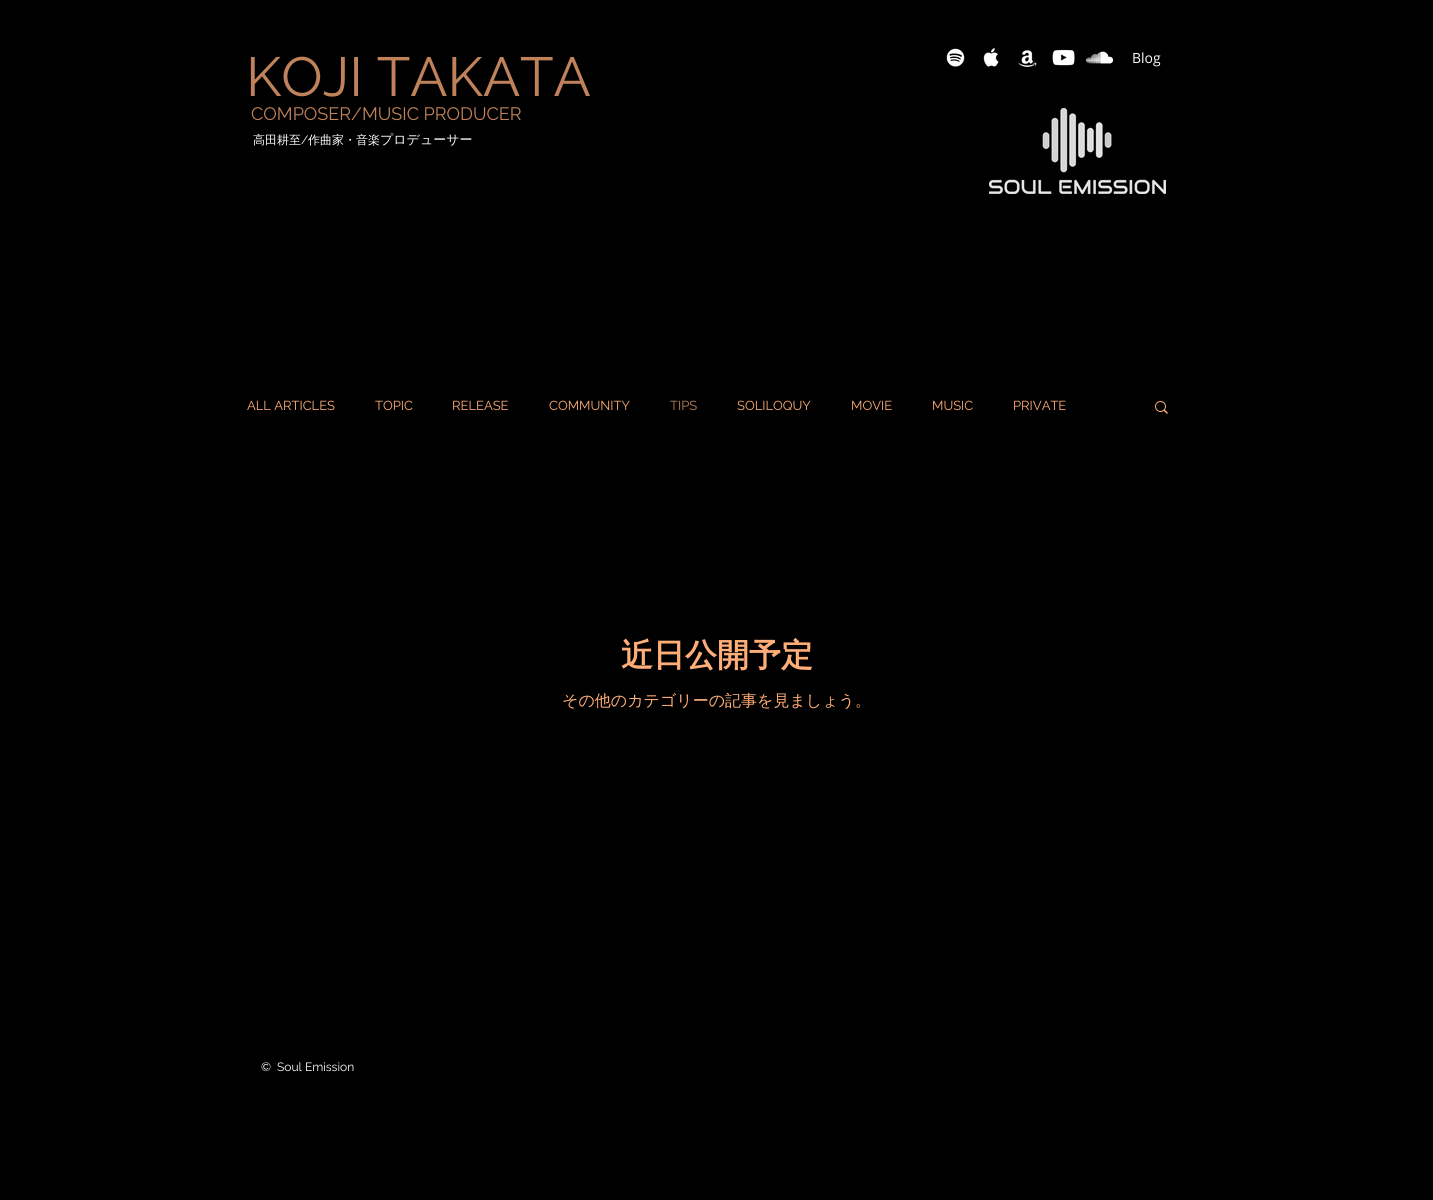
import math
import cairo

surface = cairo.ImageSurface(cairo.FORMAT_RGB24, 1433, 1200)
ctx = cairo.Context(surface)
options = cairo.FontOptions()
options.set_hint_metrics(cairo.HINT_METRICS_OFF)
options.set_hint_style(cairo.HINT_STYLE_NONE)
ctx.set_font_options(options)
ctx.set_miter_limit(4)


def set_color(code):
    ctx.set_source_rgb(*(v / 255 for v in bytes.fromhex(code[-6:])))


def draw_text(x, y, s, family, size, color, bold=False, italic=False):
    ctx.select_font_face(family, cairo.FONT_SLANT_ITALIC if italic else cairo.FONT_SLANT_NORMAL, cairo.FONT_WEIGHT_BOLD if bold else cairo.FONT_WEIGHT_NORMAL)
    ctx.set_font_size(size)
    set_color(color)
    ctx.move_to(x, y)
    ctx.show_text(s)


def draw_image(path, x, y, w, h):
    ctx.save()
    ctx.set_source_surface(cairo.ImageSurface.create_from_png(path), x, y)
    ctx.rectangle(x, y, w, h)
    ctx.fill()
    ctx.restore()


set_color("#000000")
ctx.paint()
draw_text(246, 96, "KOJI TAKATA", "Raleway", 55, "#bf825a")
draw_image("assets/img1.png", 946, 48, 19, 19)
draw_image("assets/img2.png", 983, 48, 16, 19)
draw_image("assets/img3.png", 1018, 50, 19, 17)
draw_image("assets/img4.png", 1052, 49, 23, 17)
draw_image("assets/img5.png", 1086, 51, 27, 13)
draw_text(1132, 63, "Blog", "Open Sans", 14, "#fffcfc")
draw_text(251, 120, "COMPOSER/MUSIC PRODUCER", "Raleway", 18, "#bf825a")
draw_image("assets/img6.png", 989, 108, 177, 86)
draw_text(253, 144, "高田耕至", "WenQuanYi Zen Hei Medium", 12, "#fffcfc")
draw_text(301, 144, "/", "Raleway", 12, "#fffcfc")
draw_text(308, 144, "作曲家・音楽", "WenQuanYi Zen Hei Medium", 12, "#fffcfc")
draw_text(380, 144, "プロデューサー", "WenQuanYi Zen Hei Medium", 13, "#fffcfc")
draw_text(247, 410, "ALL ARTICLES", "Raleway", 13, "#ffae78")
draw_text(375, 410, "TOPIC", "Raleway", 13, "#ffae78")
draw_text(452, 410, "RELEASE", "Raleway", 13, "#ffae78")
draw_text(549, 410, "COMMUNITY", "Raleway", 13, "#ffae78")
draw_text(670, 410, "TIPS", "Raleway", 13, "#bf825a")
draw_text(737, 410, "SOLILOQUY", "Raleway", 13, "#ffae78")
draw_text(851, 410, "MOVIE", "Raleway", 13, "#ffae78")
draw_text(932, 410, "MUSIC", "Raleway", 13, "#ffae78")
draw_text(1013, 410, "PRIVATE", "Raleway", 13, "#ffae78")
draw_image("assets/img7.png", 1155, 401, 13, 13)
draw_text(621, 666, "近日公開予定", "WenQuanYi Zen Hei", 32, "#ffae78", bold=True)
draw_text(562, 706, "その他のカテゴリーの記事を見ましょう。", "WenQuanYi Zen Hei Medium", 16, "#ffae78")
draw_text(261, 1071, "©", "Raleway", 12, "#fffcfc")
draw_text(277, 1071, "Soul Emission", "Raleway", 12, "#fffcfc")
surface.write_to_png("output.png")
